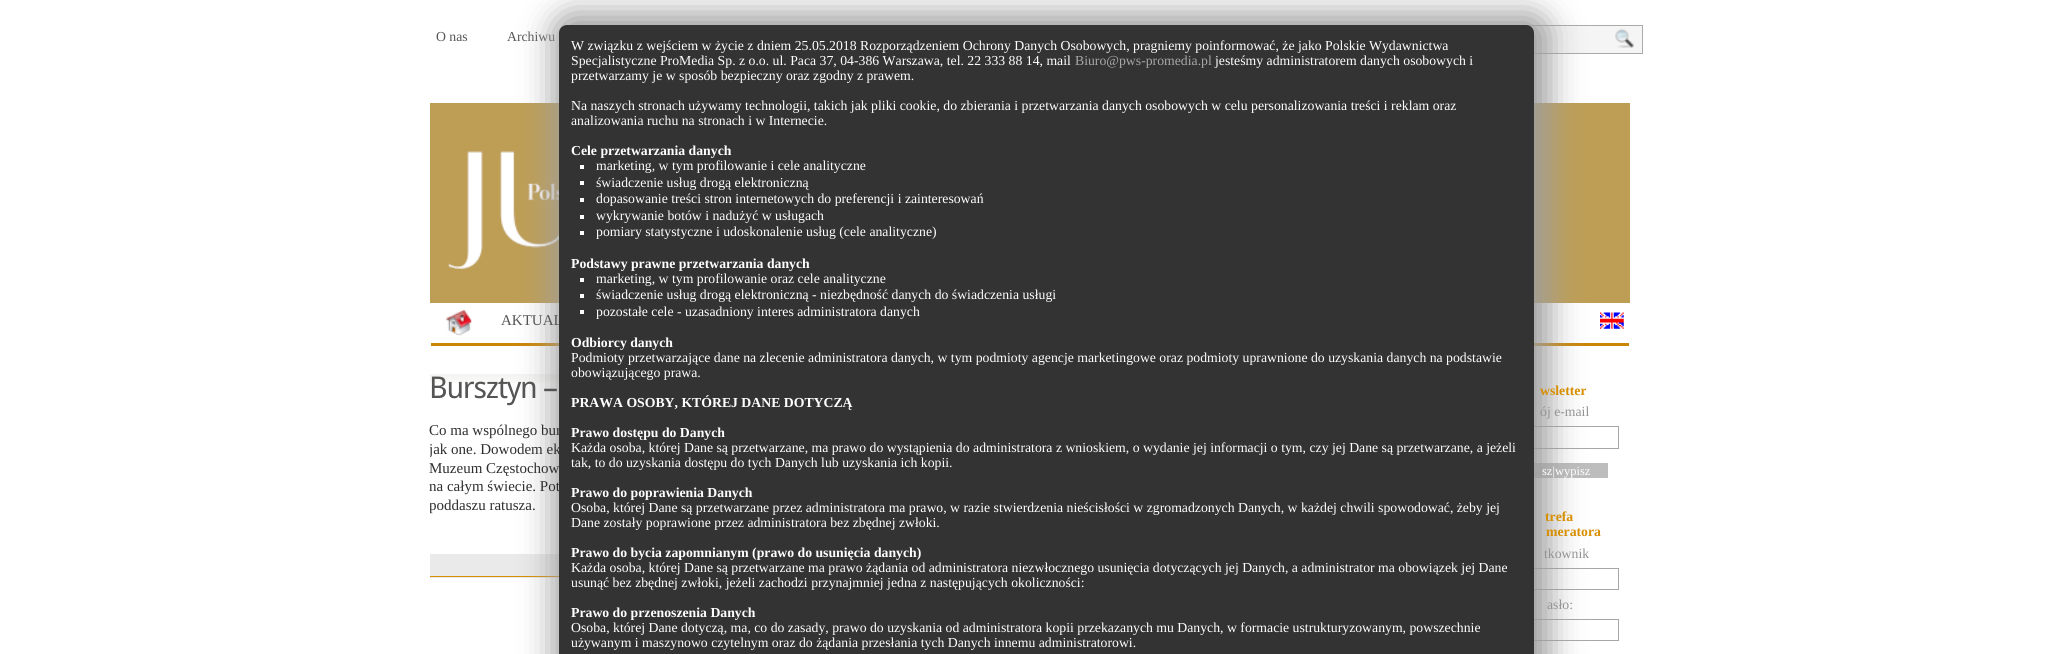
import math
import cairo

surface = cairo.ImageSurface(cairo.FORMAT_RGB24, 2058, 654)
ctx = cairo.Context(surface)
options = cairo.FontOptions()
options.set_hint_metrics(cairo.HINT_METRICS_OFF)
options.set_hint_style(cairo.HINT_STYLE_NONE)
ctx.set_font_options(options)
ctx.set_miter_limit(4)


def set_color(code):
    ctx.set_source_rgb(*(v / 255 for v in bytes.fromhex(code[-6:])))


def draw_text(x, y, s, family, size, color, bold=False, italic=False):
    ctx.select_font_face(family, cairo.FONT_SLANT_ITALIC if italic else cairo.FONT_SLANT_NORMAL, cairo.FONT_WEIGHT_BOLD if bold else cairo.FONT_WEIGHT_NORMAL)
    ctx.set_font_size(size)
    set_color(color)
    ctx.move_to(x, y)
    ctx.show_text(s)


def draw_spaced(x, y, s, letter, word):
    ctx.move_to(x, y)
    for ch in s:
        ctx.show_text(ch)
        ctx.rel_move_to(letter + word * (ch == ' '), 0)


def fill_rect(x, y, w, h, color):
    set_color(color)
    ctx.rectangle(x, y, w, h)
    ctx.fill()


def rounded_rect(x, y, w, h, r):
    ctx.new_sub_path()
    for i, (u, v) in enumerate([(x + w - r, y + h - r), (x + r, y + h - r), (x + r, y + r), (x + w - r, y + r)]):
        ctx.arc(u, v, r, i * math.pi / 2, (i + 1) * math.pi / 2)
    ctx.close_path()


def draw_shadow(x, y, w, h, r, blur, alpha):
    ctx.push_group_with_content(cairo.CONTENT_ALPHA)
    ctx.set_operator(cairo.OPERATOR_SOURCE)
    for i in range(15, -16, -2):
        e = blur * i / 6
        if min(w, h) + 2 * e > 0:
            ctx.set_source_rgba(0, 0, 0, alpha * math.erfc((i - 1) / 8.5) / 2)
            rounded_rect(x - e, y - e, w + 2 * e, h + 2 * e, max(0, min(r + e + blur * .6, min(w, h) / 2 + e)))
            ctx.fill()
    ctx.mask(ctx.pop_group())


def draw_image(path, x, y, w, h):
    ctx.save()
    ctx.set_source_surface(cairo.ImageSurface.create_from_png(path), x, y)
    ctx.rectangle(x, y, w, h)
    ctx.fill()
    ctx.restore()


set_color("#ffffff")
ctx.paint()
draw_text(436, 41, "O nas", "Liberation Serif", 13.75, "#555555")
draw_text(507, 41, "Archiwu", "Liberation Serif", 13.75, "#555555")
fill_rect(1529, 26, 113, 27, "#f5f5f5")
ctx.rectangle(1393.5, 25.5, 249, 28)
set_color("#aaaaaa")
ctx.set_line_width(1)
ctx.stroke()
draw_image("assets/img1.png", 1615, 28, 19, 20)
fill_rect(430, 103, 1200, 200, "#be9e55")
draw_image("assets/img2.png", 448, 151, 111, 118)
fill_rect(431, 343, 1198, 3, "#ca8607")
draw_image("assets/img5.png", 430, 374, 129, 9)
fill_rect(430, 554, 129, 24, "#eaeaea")
fill_rect(430, 576, 129, 1, "#d78e00")
ctx.rectangle(1493.5, 426.5, 125, 22)
set_color("#a7a7a7")
ctx.stroke()
fill_rect(1534, 463, 74, 15, "#bdbdbd")
ctx.rectangle(1493.5, 568.5, 125, 21)
set_color("#a7a7a7")
ctx.stroke()
ctx.rectangle(1493.5, 619.5, 125, 21)
ctx.stroke()
set_color("#9e9e9e")
draw_shadow(553, 13, 997, 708, 19, 16, 1)
draw_text(501, 325, "AKTUAL", "Liberation Serif", 15, "#555555")
draw_text(429, 435, "Co ma wspólnego bur", "Liberation Serif", 15, "#2e2e2e")
ctx.save()
ctx.rectangle(430, 373, 600, 205)
ctx.clip()
draw_text(429, 454, "jak one. Dowodem ek", "Liberation Serif", 15, "#2e2e2e")
ctx.restore()
draw_text(429, 473, "Muzeum Częstochow", "Liberation Serif", 15, "#2e2e2e")
draw_text(429, 491, "na całym świecie. Pot", "Liberation Serif", 15, "#2e2e2e")
set_color("#333333")
rounded_rect(559, 25, 975, 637, 8)
ctx.fill()
draw_text(571, 50, "W związku z wejściem w życie z dniem 25.05.2018 Rozporządzeniem Ochrony Danych Osobowych, pragniemy poinformować, że jako Polskie Wydawnictwa", "Liberation Serif", 13.75, "#ffffff")
draw_text(571, 65, "Specjalistyczne ProMedia Sp. z o.o. ul. Paca 37, 04-386 Warszawa, tel. 22 333 88 14, mail", "Liberation Serif", 13.75, "#ffffff")
draw_text(1075, 65, "Biuro@pws-promedia.pl", "Liberation Serif", 13.75, "#a7a7a7")
draw_text(1215, 65, "jesteśmy administratorem danych osobowych i", "Liberation Serif", 13.75, "#ffffff")
draw_text(571, 80, "przetwarzamy je w sposób bezpieczny oraz zgodny z prawem.", "Liberation Serif", 13.75, "#ffffff")
draw_text(571, 110, "Na naszych stronach używamy technologii, takich jak pliki cookie, do zbierania i przetwarzania danych osobowych w celu personalizowania treści i reklam oraz", "Liberation Serif", 13.75, "#ffffff")
draw_text(571, 125, "analizowania ruchu na stronach i w Internecie.", "Liberation Serif", 13.75, "#ffffff")
draw_text(571, 155, "Cele przetwarzania danych", "Liberation Serif", 13.75, "#ffffff", bold=True)
fill_rect(580, 165, 4, 4, "#ffffff")
draw_text(596, 170, "marketing, w tym profilowanie i cele analityczne", "Liberation Serif", 13.75, "#ffffff")
fill_rect(580, 181, 4, 4, "#ffffff")
draw_text(596, 187, "świadczenie usług drogą elektroniczną", "Liberation Serif", 13.75, "#ffffff")
fill_rect(580, 198, 4, 4, "#ffffff")
draw_text(596, 203, "dopasowanie treści stron internetowych do preferencji i zainteresowań", "Liberation Serif", 13.75, "#ffffff")
fill_rect(580, 215, 4, 4, "#ffffff")
draw_text(596, 220, "wykrywanie botów i nadużyć w usługach", "Liberation Serif", 13.75, "#ffffff")
fill_rect(580, 231, 4, 4, "#ffffff")
draw_text(596, 236, "pomiary statystyczne i udoskonalenie usług (cele analityczne)", "Liberation Serif", 13.75, "#ffffff")
draw_text(571, 268, "Podstawy prawne przetwarzania danych", "Liberation Serif", 13.75, "#ffffff", bold=True)
fill_rect(580, 278, 4, 4, "#ffffff")
draw_text(596, 283, "marketing, w tym profilowanie oraz cele analityczne", "Liberation Serif", 13.75, "#ffffff")
fill_rect(580, 294, 4, 4, "#ffffff")
draw_text(596, 299, "świadczenie usług drogą elektroniczną - niezbędność danych do świadczenia usługi", "Liberation Serif", 13.75, "#ffffff")
fill_rect(580, 310, 4, 4, "#ffffff")
draw_text(596, 316, "pozostałe cele - uzasadniony interes administratora danych", "Liberation Serif", 13.75, "#ffffff")
draw_text(571, 347, "Odbiorcy danych", "Liberation Serif", 13.75, "#ffffff", bold=True)
draw_text(571, 362, "Podmioty przetwarzające dane na zlecenie administratora danych, w tym podmioty agencje marketingowe oraz podmioty uprawnione do uzyskania danych na podstawie", "Liberation Serif", 13.75, "#ffffff")
draw_text(571, 377, "obowiązującego prawa.", "Liberation Serif", 13.75, "#ffffff")
draw_text(571, 407, "PRAWA OSOBY, KTÓREJ DANE DOTYCZĄ", "Liberation Serif", 13.75, "#ffffff", bold=True)
draw_text(571, 437, "Prawo dostępu do Danych", "Liberation Serif", 13.75, "#ffffff", bold=True)
draw_text(571, 452, "Każda osoba, której Dane są przetwarzane, ma prawo do wystąpienia do administratora z wnioskiem, o wydanie jej informacji o tym, czy jej Dane są przetwarzane, a jeżeli", "Liberation Serif", 13.75, "#ffffff")
draw_text(571, 467, "tak, to do uzyskania dostępu do tych Danych lub uzyskania ich kopii.", "Liberation Serif", 13.75, "#ffffff")
draw_text(571, 497, "Prawo do poprawienia Danych", "Liberation Serif", 13.75, "#ffffff", bold=True)
draw_text(571, 512, "Osoba, której Dane są przetwarzane przez administratora ma prawo, w razie stwierdzenia nieścisłości w zgromadzonych Danych, w każdej chwili spowodować, żeby jej", "Liberation Serif", 13.75, "#ffffff")
draw_text(571, 527, "Dane zostały poprawione przez administratora bez zbędnej zwłoki.", "Liberation Serif", 13.75, "#ffffff")
draw_text(571, 557, "Prawo do bycia zapomnianym (prawo do usunięcia danych)", "Liberation Serif", 13.75, "#ffffff", bold=True)
draw_text(571, 572, "Każda osoba, której Dane są przetwarzane ma prawo żądania od administratora niezwłocznego usunięcia dotyczących jej Danych, a administrator ma obowiązek jej Dane", "Liberation Serif", 13.75, "#ffffff")
draw_text(571, 587, "usunąć bez zbędnej zwłoki, jeżeli zachodzi przynajmniej jedna z następujących okoliczności:", "Liberation Serif", 13.75, "#ffffff")
draw_text(571, 617, "Prawo do przenoszenia Danych", "Liberation Serif", 13.75, "#ffffff", bold=True)
draw_text(571, 632, "Osoba, której Dane dotyczą, ma, co do zasady, prawo do uzyskania od administratora kopii przekazanych mu Danych, w formacie ustrukturyzowanym, powszechnie", "Liberation Serif", 13.75, "#ffffff")
draw_text(571, 647, "używanym i maszynowo czytelnym oraz do żądania przesłania tych Danych innemu administratorowi.", "Liberation Serif", 13.75, "#ffffff")
draw_image("assets/img3.png", 446, 310, 26, 26)
draw_image("assets/img4.png", 1600, 312, 24, 17)
ctx.select_font_face("Droid Sans")
ctx.set_font_size(30)
set_color("#555555")
draw_spaced(429, 398, "Bursztyn –", -1.25, 0)
ctx.save()
ctx.rectangle(430, 373, 600, 205)
ctx.clip()
draw_text(429, 510, "poddaszu ratusza.", "Liberation Serif", 15, "#2e2e2e")
ctx.restore()
draw_text(1540, 395, "wsletter", "Liberation Serif", 13.75, "#d78e00", bold=True)
draw_text(1540, 416, "ój e-mail", "Liberation Serif", 13.75, "#939393")
draw_text(1542, 475, "sz|wypisz", "Liberation Serif", 12.5, "#ffffff")
draw_text(1545, 521, "trefa", "Liberation Serif", 13.75, "#d78e00", bold=True)
draw_text(1546, 536, "meratora", "Liberation Serif", 13.75, "#d78e00", bold=True)
draw_text(1544, 558, "tkownik", "Liberation Serif", 13.75, "#939393")
draw_text(1547, 609, "asło:", "Liberation Serif", 13.75, "#939393")
surface.write_to_png("output.png")
